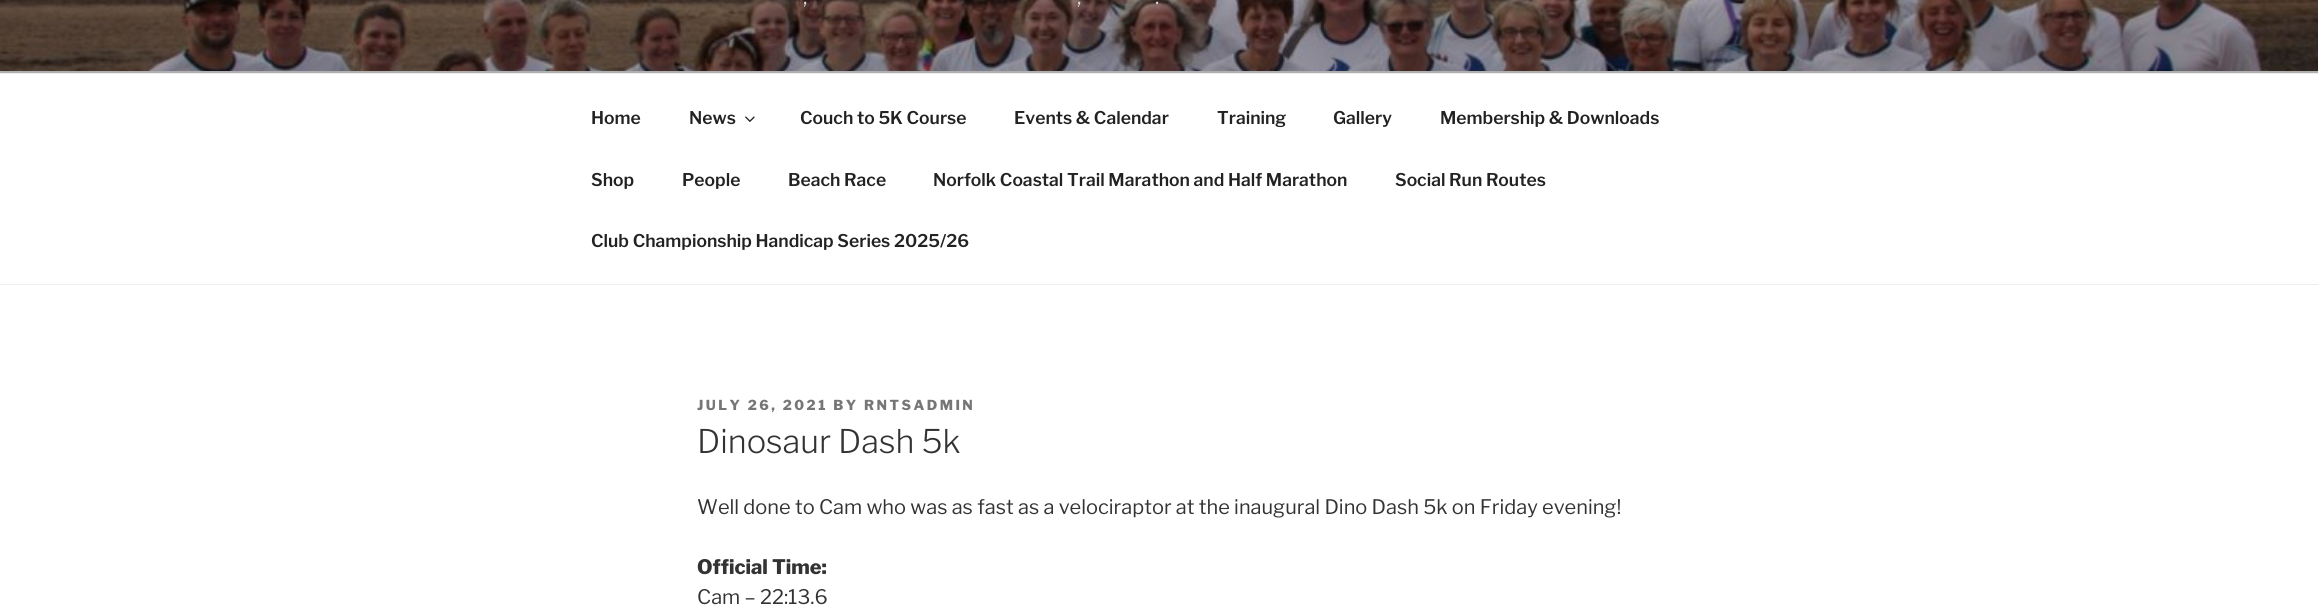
import math
import cairo

surface = cairo.ImageSurface(cairo.FORMAT_RGB24, 2318, 609)
ctx = cairo.Context(surface)
options = cairo.FontOptions()
options.set_hint_metrics(cairo.HINT_METRICS_OFF)
options.set_hint_style(cairo.HINT_STYLE_NONE)
ctx.set_font_options(options)
ctx.set_miter_limit(4)


def set_color(code):
    ctx.set_source_rgb(*(v / 255 for v in bytes.fromhex(code[-6:])))


def draw_text(x, y, s, family, size, color, bold=False, italic=False):
    ctx.select_font_face(family, cairo.FONT_SLANT_ITALIC if italic else cairo.FONT_SLANT_NORMAL, cairo.FONT_WEIGHT_BOLD if bold else cairo.FONT_WEIGHT_NORMAL)
    ctx.set_font_size(size)
    set_color(color)
    ctx.move_to(x, y)
    ctx.show_text(s)


def draw_spaced(x, y, s, letter, word):
    ctx.move_to(x, y)
    for ch in s:
        ctx.show_text(ch)
        ctx.rel_move_to(letter + word * (ch == ' '), 0)


def fill_rect(x, y, w, h, color):
    set_color(color)
    ctx.rectangle(x, y, w, h)
    ctx.fill()


def draw_image(path, x, y, w, h):
    ctx.save()
    ctx.set_source_surface(cairo.ImageSurface.create_from_png(path), x, y)
    ctx.rectangle(x, y, w, h)
    ctx.fill()
    ctx.restore()


set_color("#ffffff")
ctx.paint()
fill_rect(0, 71, 2318, 2, "#fafafa")
draw_image("assets/img1.png", 0, 0, 2318, 71)
gradient = cairo.LinearGradient(1159, -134, 1159, 73)
gradient.add_color_stop_rgba(0, 0, 0, 0, 0)
gradient.add_color_stop_rgba(0.75, 0, 0, 0, 0.3)
gradient.add_color_stop_rgba(1, 0, 0, 0, 0.3)
ctx.set_source(gradient)
ctx.rectangle(0, 0, 2318, 73)
ctx.fill()
draw_text(803, 4, ",", "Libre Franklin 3 Thin", 20, "#dbd7d6")
draw_text(1077, 4, ",", "Libre Franklin 3 Thin", 20, "#dbd7d6")
draw_text(1155, 4, ".", "Libre Franklin 3 Thin", 20, "#dbd7d6")
fill_rect(0, 73, 2318, 1, "#eeeeee")
fill_rect(0, 284, 2318, 1, "#eeeeee")
draw_text(591, 124, "Home", "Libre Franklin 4 Thin", 17.5, "#222222")
draw_text(689, 124, "News", "Libre Franklin 4 Thin", 17.5, "#222222")
draw_image("assets/img2.png", 745, 116, 10, 6)
draw_text(800, 124, "Couch to 5K Course", "Libre Franklin 4 Thin", 17.5, "#222222")
draw_text(1014, 124, "Events & Calendar", "Libre Franklin 4 Thin", 17.5, "#222222")
draw_text(1217, 124, "Training", "Libre Franklin 4 Thin", 17.5, "#222222")
draw_text(1333, 124, "Gallery", "Libre Franklin 4 Thin", 17.5, "#222222")
draw_text(1440, 124, "Membership & Downloads", "Libre Franklin 4 Thin", 17.5, "#222222")
draw_text(591, 186, "Shop", "Libre Franklin 4 Thin", 17.5, "#222222")
draw_text(682, 186, "People", "Libre Franklin 4 Thin", 17.5, "#222222")
draw_text(788, 186, "Beach Race", "Libre Franklin 4 Thin", 17.5, "#222222")
draw_text(933, 186, "Norfolk Coastal Trail Marathon and Half Marathon", "Libre Franklin 4 Thin", 17.5, "#222222")
draw_text(1395, 186, "Social Run Routes", "Libre Franklin 4 Thin", 17.5, "#222222")
draw_text(591, 247, "Club Championship Handicap Series 2025/26", "Libre Franklin 4 Thin", 17.5, "#222222")
ctx.select_font_face("Libre Franklin Thin")
ctx.set_font_size(13.75)
set_color("#767676")
draw_spaced(697, 410, "JULY 26, 2021 BY RNTSADMIN", 2.5, 0)
draw_text(697, 453, "Dinosaur Dash 5k", "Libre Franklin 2 Thin", 32.5, "#333333")
draw_text(697, 514, "Well done to Cam who was as fast as a velociraptor at the inaugural Dino Dash 5k on Friday evening!", "Libre Franklin 3 Thin", 20, "#333333")
draw_text(697, 574, "Official Time:", "Libre Franklin Thin", 20, "#333333")
draw_text(697, 604, "Cam – 22:13.6", "Libre Franklin 3 Thin", 20, "#333333")
surface.write_to_png("output.png")
